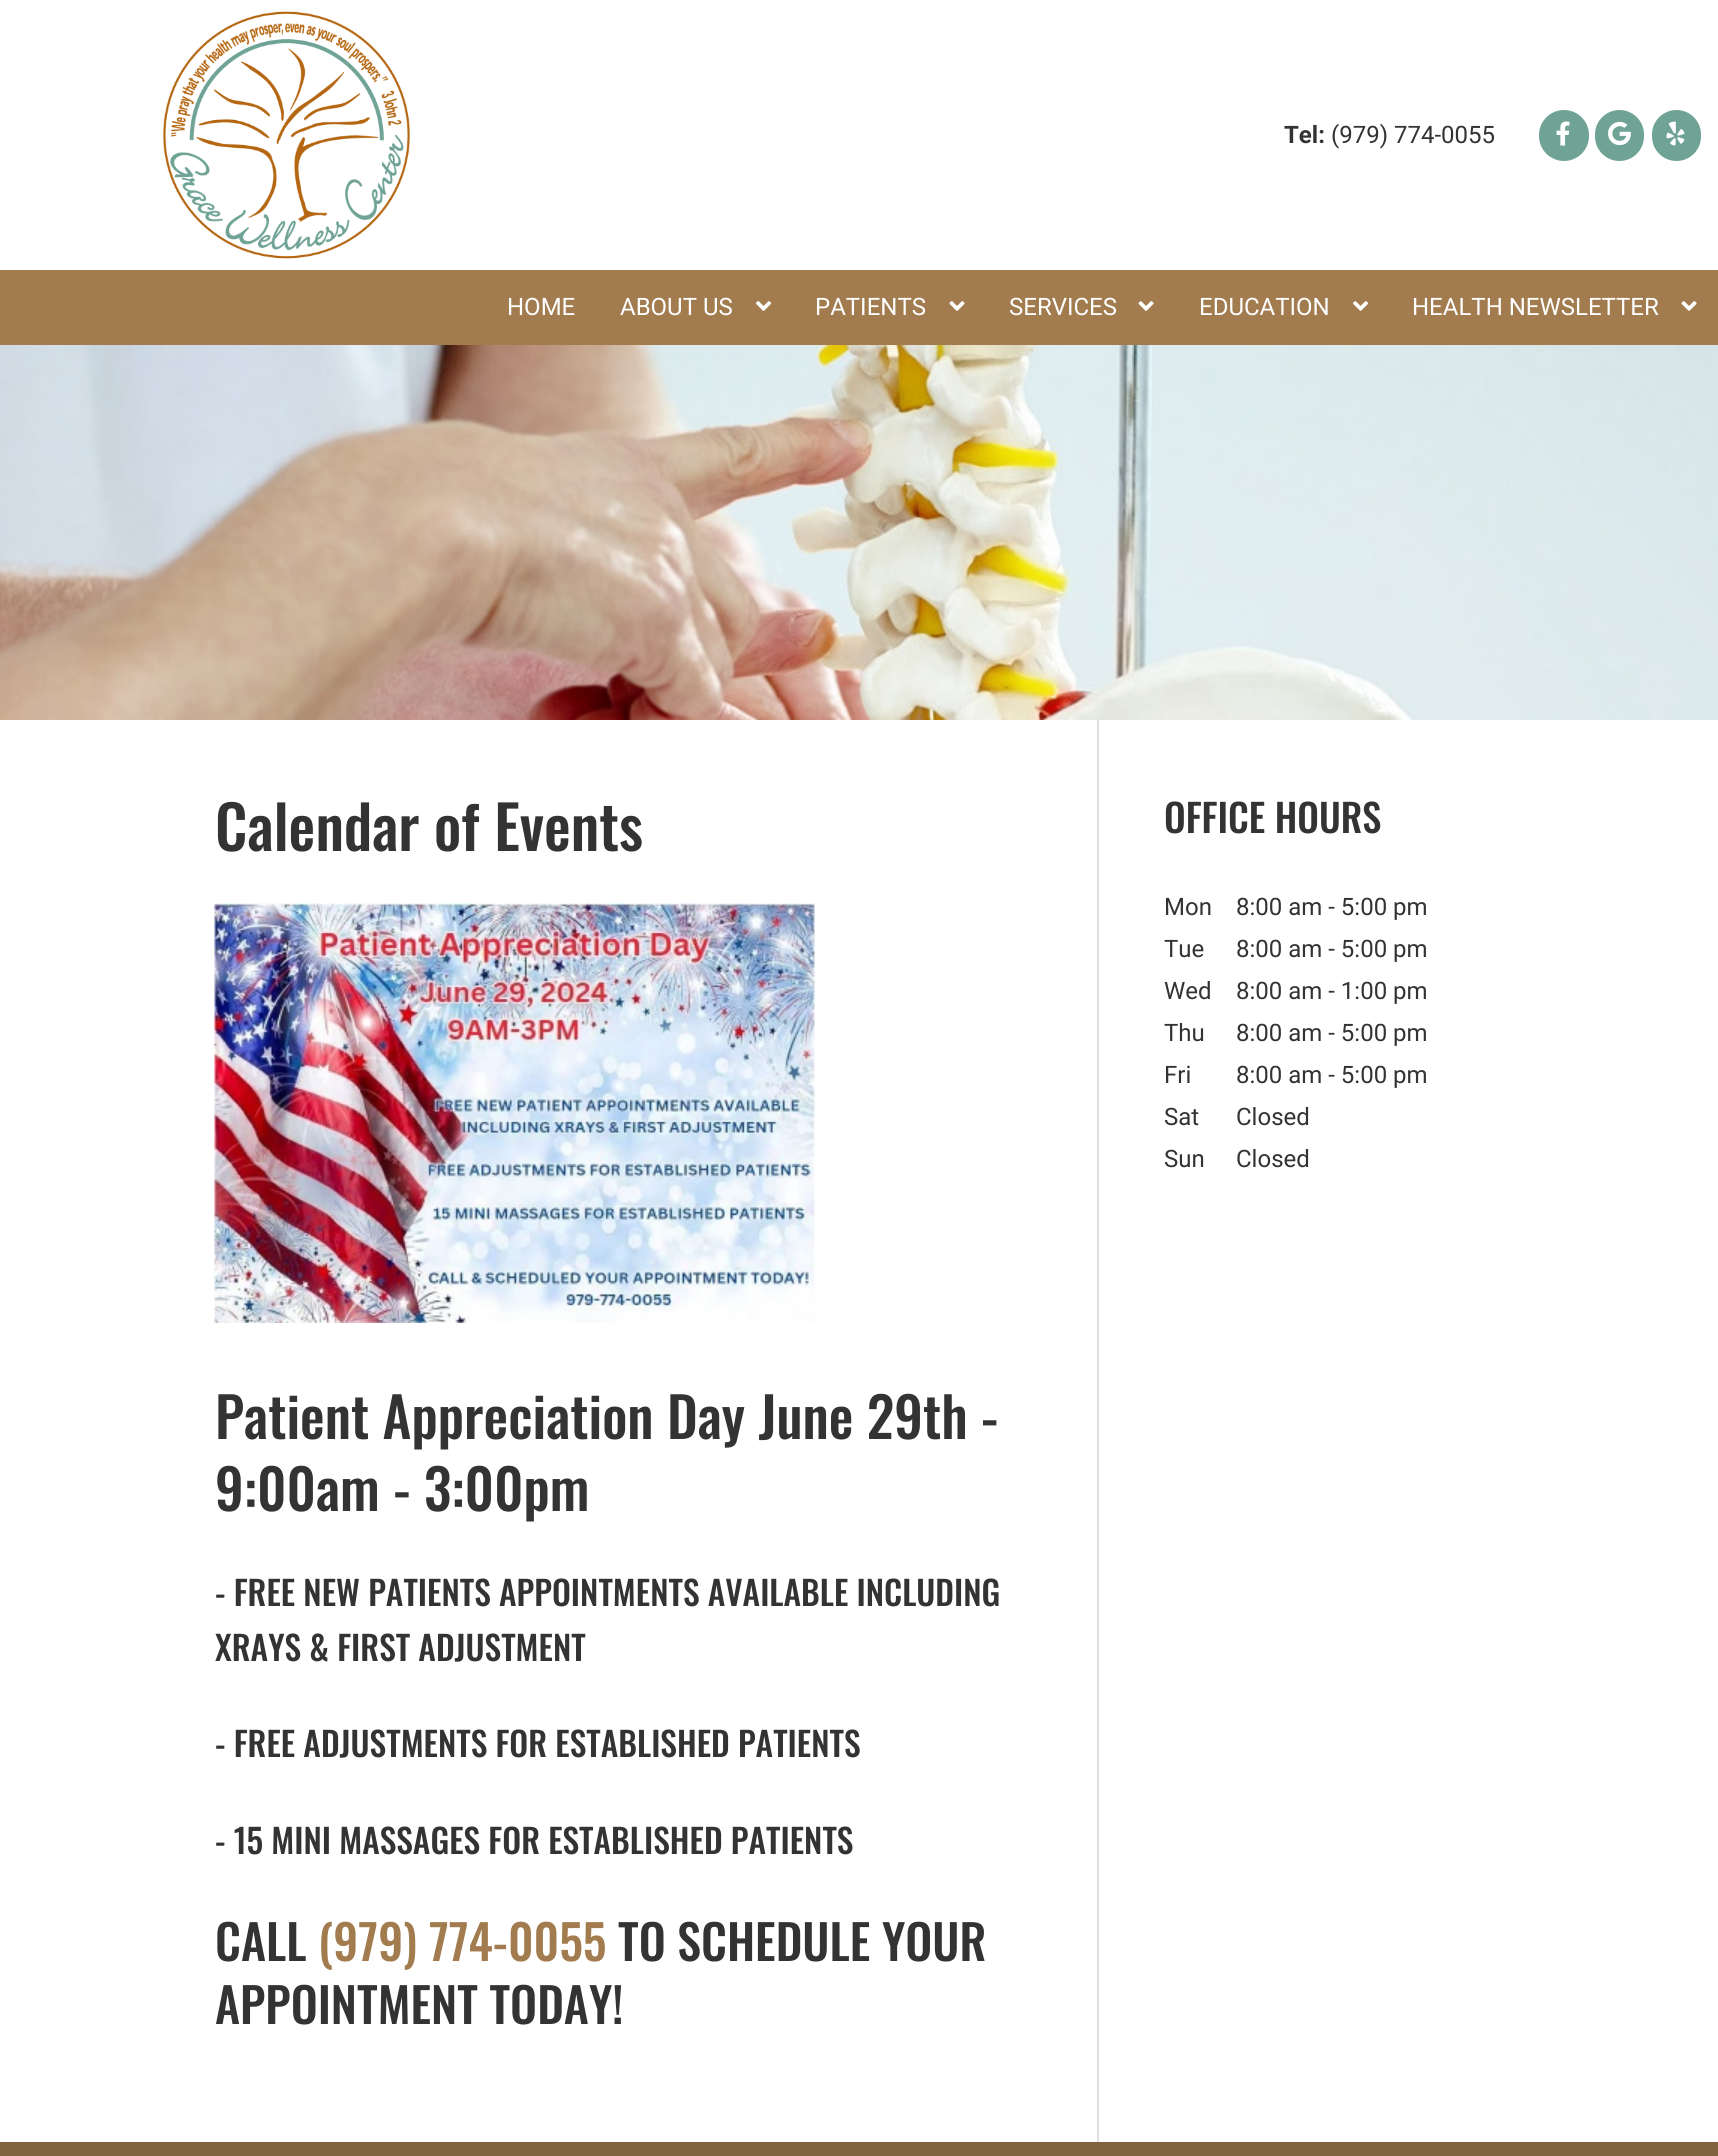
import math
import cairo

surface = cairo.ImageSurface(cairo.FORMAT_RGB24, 1718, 2156)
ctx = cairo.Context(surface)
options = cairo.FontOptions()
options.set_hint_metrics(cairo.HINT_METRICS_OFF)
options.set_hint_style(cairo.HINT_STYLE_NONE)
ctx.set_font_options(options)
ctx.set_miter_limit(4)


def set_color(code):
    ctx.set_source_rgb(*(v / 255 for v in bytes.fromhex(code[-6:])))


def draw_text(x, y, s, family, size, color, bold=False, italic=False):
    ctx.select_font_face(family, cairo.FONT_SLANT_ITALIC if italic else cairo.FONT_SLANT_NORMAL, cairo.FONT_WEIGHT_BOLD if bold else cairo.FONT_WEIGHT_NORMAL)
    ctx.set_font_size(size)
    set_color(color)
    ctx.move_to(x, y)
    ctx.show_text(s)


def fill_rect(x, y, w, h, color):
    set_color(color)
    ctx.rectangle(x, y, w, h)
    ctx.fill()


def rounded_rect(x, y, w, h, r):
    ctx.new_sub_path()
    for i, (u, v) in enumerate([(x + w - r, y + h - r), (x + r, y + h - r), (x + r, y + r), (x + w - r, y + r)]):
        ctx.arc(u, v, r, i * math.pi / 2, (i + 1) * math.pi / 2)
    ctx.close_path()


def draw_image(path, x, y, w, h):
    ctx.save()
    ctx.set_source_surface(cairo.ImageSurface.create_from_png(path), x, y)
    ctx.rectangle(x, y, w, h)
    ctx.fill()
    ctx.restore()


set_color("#ffffff")
ctx.paint()
draw_image("assets/img1.png", 163, 11, 247, 248)
draw_text(1284, 143, "Tel:", "Roboto", 24, "#333333", bold=True)
draw_text(1331, 143, "(979) 774-0055", "Roboto", 24, "#333333")
set_color("#6fa395")
rounded_rect(1539, 110, 50, 51, 25)
ctx.fill()
draw_image("assets/img2.png", 1556, 121, 14, 25)
rounded_rect(1595, 110, 49, 51, 24.5)
ctx.fill()
draw_image("assets/img3.png", 1608, 121, 23, 25)
rounded_rect(1652, 110, 49, 51, 24.5)
ctx.fill()
draw_image("assets/img4.png", 1666, 121, 19, 25)
fill_rect(0, 270, 1718, 75, "#a27c4f")
draw_text(507, 315, "HOME", "Roboto", 24, "#ffffff")
draw_text(620, 315, "ABOUT US", "Roboto", 24, "#ffffff")
draw_image("assets/img5.png", 756, 301, 15, 10)
draw_text(815, 315, "PATIENTS", "Roboto", 24, "#ffffff")
draw_image("assets/img6.png", 949, 301, 16, 10)
draw_text(1009, 315, "SERVICES", "Roboto", 24, "#ffffff")
draw_image("assets/img6.png", 1138, 301, 16, 10)
draw_text(1199, 315, "EDUCATION", "Roboto", 24, "#ffffff")
draw_image("assets/img5.png", 1353, 301, 15, 10)
draw_text(1412, 315, "HEALTH NEWSLETTER", "Roboto", 24, "#ffffff")
draw_image("assets/img6.png", 1681, 301, 16, 10)
draw_image("assets/img7.png", 0, 345, 1718, 375)
draw_text(215, 851, "Calendar of Events", "Oswald Medium", 60, "#333333")
draw_image("assets/img8.png", 214, 903, 601, 420)
draw_text(215, 1439, "Patient Appreciation Day June 29th -", "Oswald Medium", 55.25, "#333333")
draw_text(215, 1511, "9:00am - 3:00pm", "Oswald Medium", 55.25, "#333333")
draw_text(215, 1606, "- FREE NEW PATIENTS APPOINTMENTS AVAILABLE INCLUDING", "Oswald Medium", 33.6, "#333333")
draw_text(215, 1661, "XRAYS & FIRST ADJUSTMENT", "Oswald Medium", 33.6, "#333333")
draw_text(215, 1757, "- FREE ADJUSTMENTS FOR ESTABLISHED PATIENTS", "Oswald Medium", 33.6, "#333333")
draw_text(215, 1854, "- 15 MINI MASSAGES FOR ESTABLISHED PATIENTS", "Oswald Medium", 33.6, "#333333")
draw_text(215, 1961, "CALL", "Oswald Medium", 48, "#333333")
draw_text(318, 1961, "(979) 774-0055", "Oswald Medium", 48, "#a27c4f")
draw_text(618, 1961, "TO SCHEDULE YOUR", "Oswald Medium", 48, "#333333")
draw_text(215, 2024, "APPOINTMENT TODAY!", "Oswald Medium", 48, "#333333")
fill_rect(1097, 720, 2, 1422, "#dedede")
draw_text(1164, 833, "OFFICE HOURS", "Oswald Medium", 38.5, "#333333")
draw_text(1164, 915, "Mon", "Roboto", 24, "#333333")
draw_text(1236, 915, "8:00 am - 5:00 pm", "Roboto", 24, "#333333")
draw_text(1164, 957, "Tue", "Roboto", 24, "#333333")
draw_text(1236, 957, "8:00 am - 5:00 pm", "Roboto", 24, "#333333")
draw_text(1164, 999, "Wed", "Roboto", 24, "#333333")
draw_text(1236, 999, "8:00 am - 1:00 pm", "Roboto", 24, "#333333")
draw_text(1164, 1041, "Thu", "Roboto", 24, "#333333")
draw_text(1236, 1041, "8:00 am - 5:00 pm", "Roboto", 24, "#333333")
draw_text(1164, 1083, "Fri", "Roboto", 24, "#333333")
draw_text(1236, 1083, "8:00 am - 5:00 pm", "Roboto", 24, "#333333")
draw_text(1164, 1125, "Sat", "Roboto", 24, "#333333")
draw_text(1236, 1125, "Closed", "Roboto", 24, "#333333")
draw_text(1164, 1167, "Sun", "Roboto", 24, "#333333")
draw_text(1236, 1167, "Closed", "Roboto", 24, "#333333")
fill_rect(0, 2142, 1718, 14, "#80623e")
surface.write_to_png("output.png")
